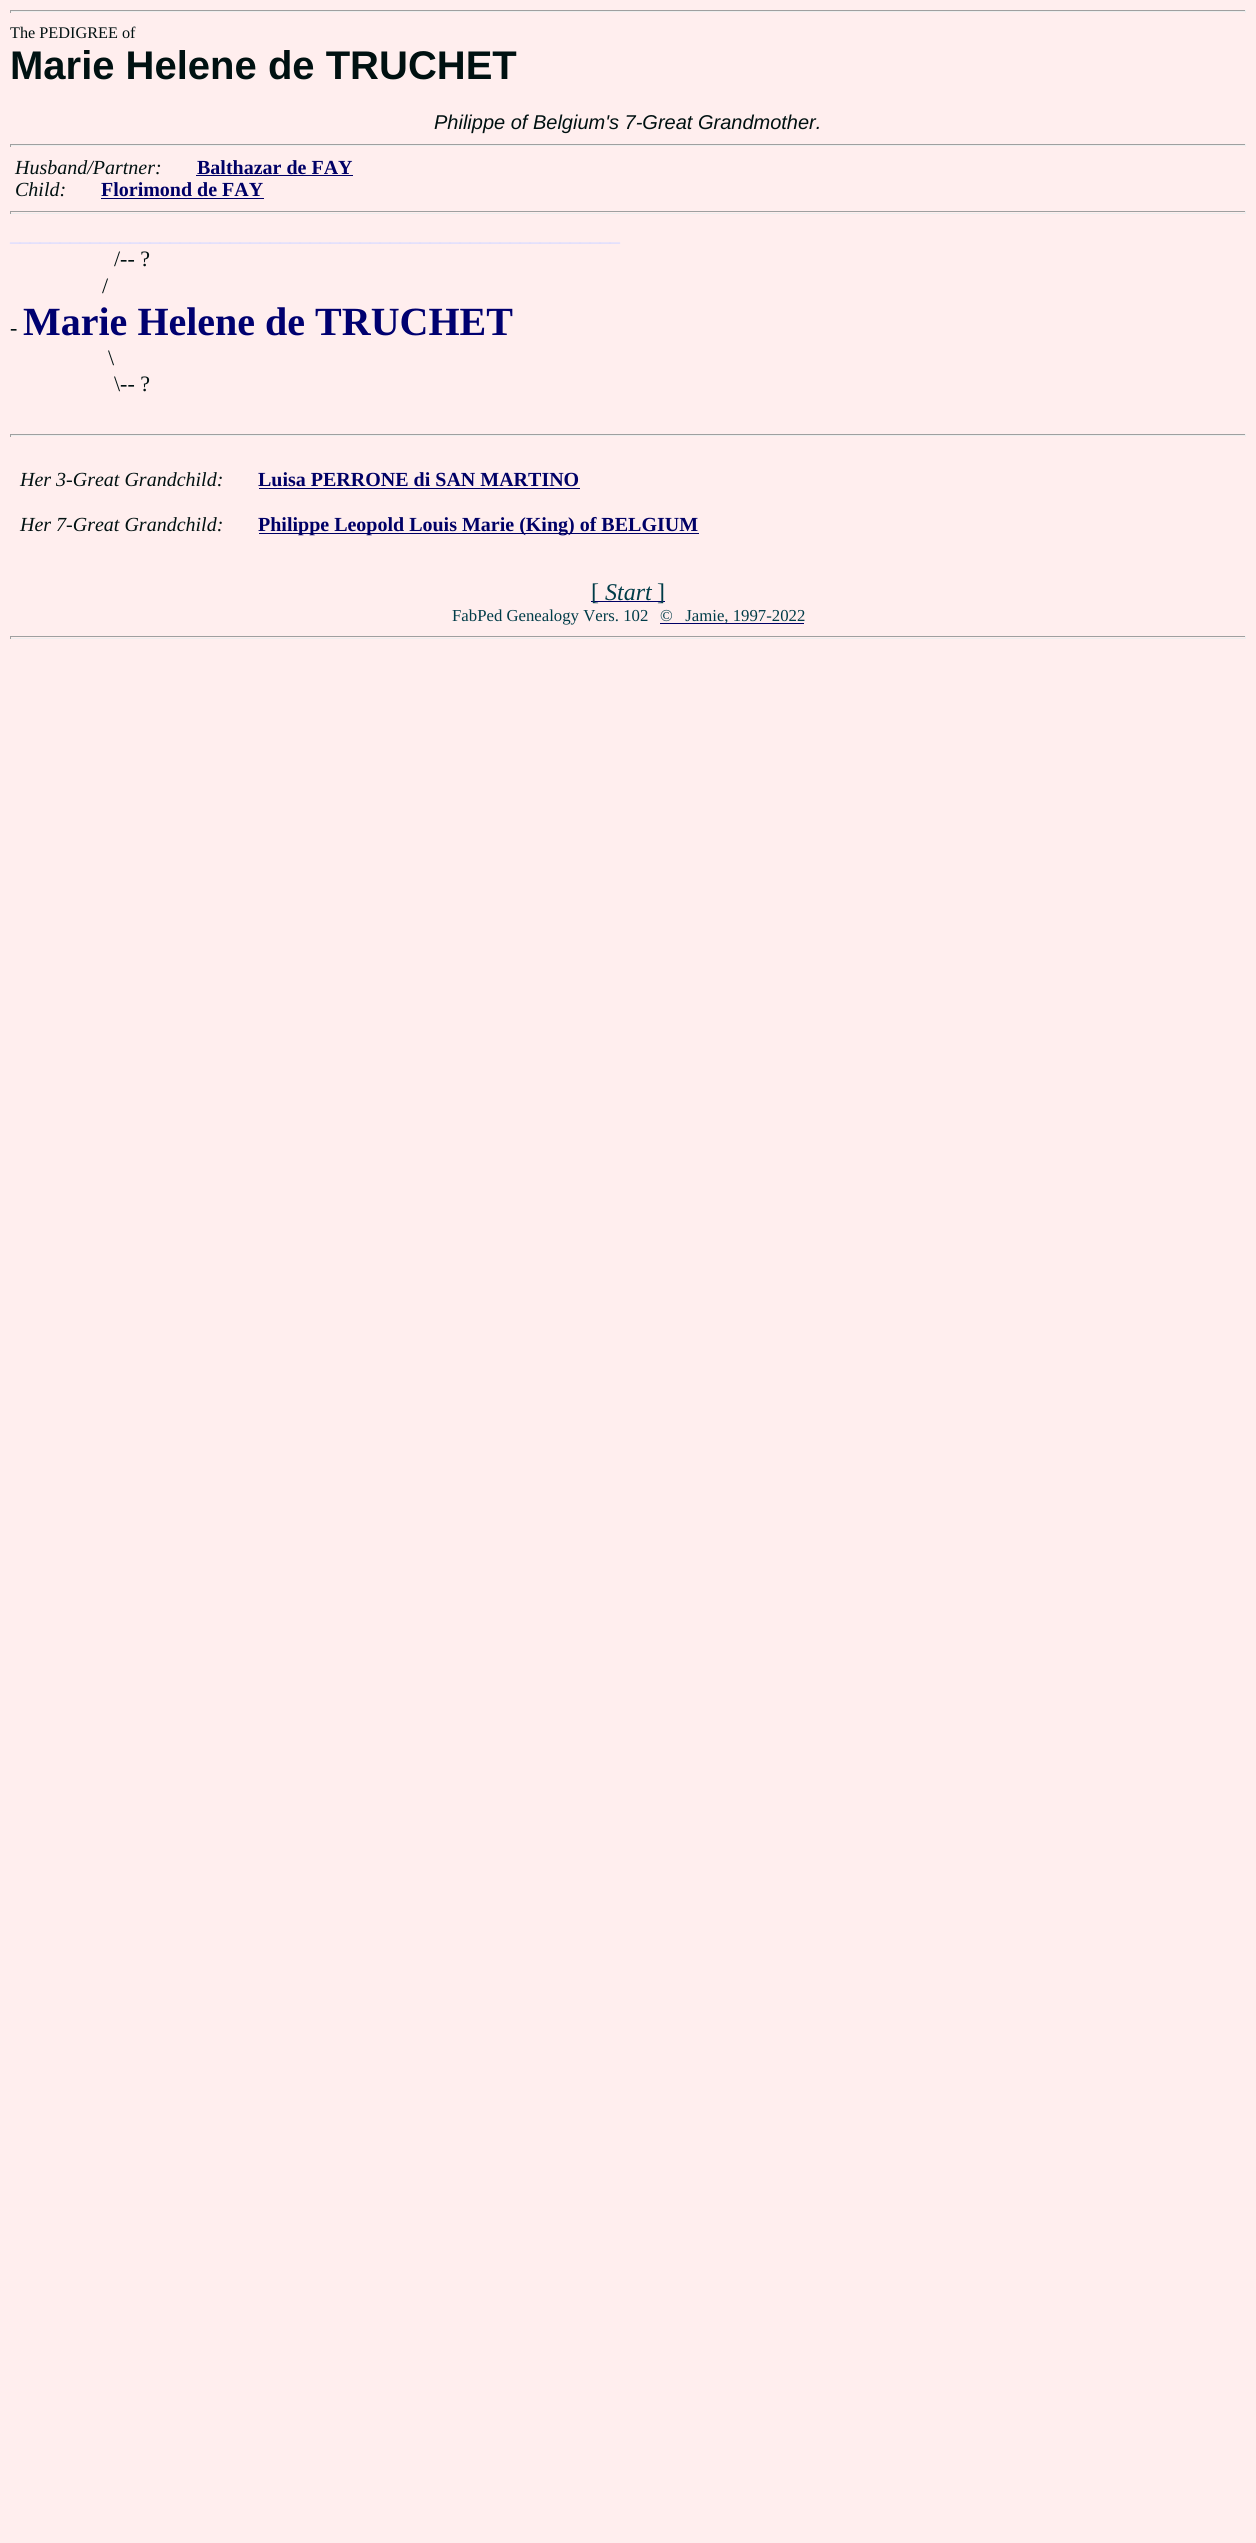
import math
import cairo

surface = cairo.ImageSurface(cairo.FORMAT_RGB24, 1256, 2543)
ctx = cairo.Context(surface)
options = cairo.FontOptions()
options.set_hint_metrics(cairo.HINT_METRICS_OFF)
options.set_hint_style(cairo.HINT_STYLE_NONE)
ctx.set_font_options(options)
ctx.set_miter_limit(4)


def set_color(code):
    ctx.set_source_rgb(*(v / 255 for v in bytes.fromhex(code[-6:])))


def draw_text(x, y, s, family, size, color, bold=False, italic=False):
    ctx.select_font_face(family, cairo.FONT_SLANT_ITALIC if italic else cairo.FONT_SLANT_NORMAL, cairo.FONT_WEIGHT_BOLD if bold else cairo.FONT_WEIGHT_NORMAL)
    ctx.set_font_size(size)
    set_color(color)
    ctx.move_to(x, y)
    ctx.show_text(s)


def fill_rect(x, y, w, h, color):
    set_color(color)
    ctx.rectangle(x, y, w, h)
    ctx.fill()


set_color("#ffeeee")
ctx.paint()
fill_rect(10, 10, 1236, 1, "#9f9f9f")
fill_rect(1245, 10, 1, 3, "#eeeeee")
fill_rect(10, 11, 1236, 1, "#eeeeee")
fill_rect(10, 10, 1, 3, "#9f9f9f")
draw_text(10, 38, "The PEDIGREE of", "Liberation Serif", 16.25, "#001111")
draw_text(10, 79, "Marie Helene de TRUCHET", "Liberation Sans", 40, "#001111", bold=True)
draw_text(434, 129, "Philippe of Belgium's 7-Great Grandmother.", "Liberation Sans", 20, "#001111", italic=True)
fill_rect(10, 144, 1236, 1, "#9f9f9f")
fill_rect(1245, 144, 1, 3, "#eeeeee")
fill_rect(10, 145, 1236, 1, "#eeeeee")
fill_rect(10, 144, 1, 3, "#9f9f9f")
draw_text(15, 174, "Husband/Partner:", "Liberation Serif", 20, "#001111", italic=True)
draw_text(197, 174, "Balthazar de FAY", "Liberation Serif", 20, "#000066", bold=True)
fill_rect(196, 175, 157, 1, "#000066")
draw_text(15, 196, "Child:", "Liberation Serif", 20, "#001111", italic=True)
draw_text(101, 196, "Florimond de FAY", "Liberation Serif", 20, "#000066", bold=True)
fill_rect(101, 198, 163, 1, "#000066")
fill_rect(10, 211, 1236, 1, "#9f9f9f")
fill_rect(1245, 211, 1, 3, "#eeeeee")
fill_rect(10, 213, 1236, 1, "#eeeeee")
fill_rect(10, 211, 1, 3, "#9f9f9f")
draw_text(10, 241, "_____________________________________________________________", "Liberation Serif", 20, "#ddddff", bold=True)
draw_text(114, 266, "/-- ?", "Liberation Serif", 22, "#001111")
draw_text(102, 293, "/", "Liberation Serif", 22, "#001111")
draw_text(10, 335, "-", "Liberation Serif", 22, "#001111")
draw_text(23, 335, "Marie Helene de TRUCHET", "Liberation Serif", 40, "#000070", bold=True)
draw_text(108, 365, "\\", "Liberation Serif", 22, "#001111")
draw_text(114, 391, "\\-- ?", "Liberation Serif", 22, "#001111")
fill_rect(10, 434, 1236, 1, "#9f9f9f")
fill_rect(1245, 434, 1, 3, "#eeeeee")
fill_rect(10, 435, 1236, 1, "#eeeeee")
fill_rect(10, 434, 1, 3, "#9f9f9f")
draw_text(20, 486, "Her 3-Great Grandchild:", "Liberation Serif", 20, "#001111", italic=True)
draw_text(258, 486, "Luisa PERRONE di SAN MARTINO", "Liberation Serif", 20, "#000066", bold=True)
fill_rect(259, 488, 321, 1, "#000066")
draw_text(20, 531, "Her 7-Great Grandchild:", "Liberation Serif", 20, "#001111", italic=True)
fill_rect(259, 533, 440, 1, "#000066")
draw_text(258, 531, "Philippe Leopold Louis Marie (King) of BELGIUM", "Liberation Serif", 20, "#000066", bold=True)
fill_rect(591, 601, 74, 1, "#000066")
draw_text(591, 600, "[", "Liberation Serif", 24, "#003c48")
draw_text(605, 600, "Start", "Liberation Serif", 24, "#003c48", italic=True)
draw_text(657, 600, "]", "Liberation Serif", 24, "#003c48")
draw_text(452, 621, "FabPed Genealogy Vers. 102", "Liberation Serif", 16.75, "#003c48")
fill_rect(660, 623, 144, 1, "#000066")
draw_text(660, 621, "©   Jamie, 1997-2022", "Liberation Serif", 16.75, "#003c48")
fill_rect(10, 636, 1236, 1, "#9f9f9f")
fill_rect(1245, 636, 1, 3, "#eeeeee")
fill_rect(10, 638, 1236, 1, "#eeeeee")
fill_rect(10, 636, 1, 3, "#9f9f9f")
surface.write_to_png("output.png")
